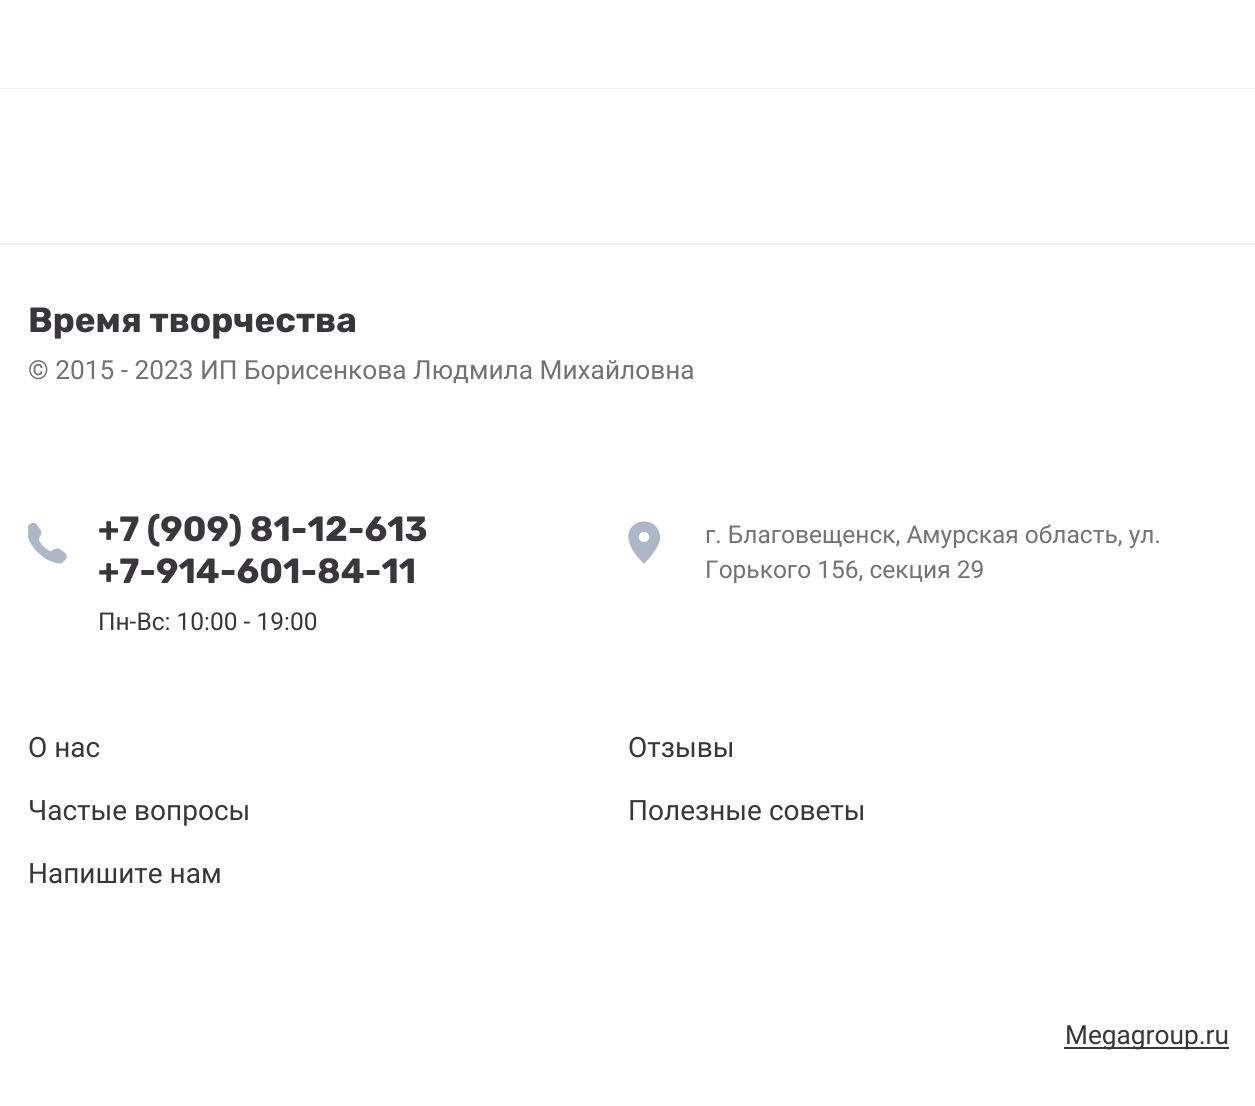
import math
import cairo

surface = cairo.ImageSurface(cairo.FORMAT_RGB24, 1255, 1106)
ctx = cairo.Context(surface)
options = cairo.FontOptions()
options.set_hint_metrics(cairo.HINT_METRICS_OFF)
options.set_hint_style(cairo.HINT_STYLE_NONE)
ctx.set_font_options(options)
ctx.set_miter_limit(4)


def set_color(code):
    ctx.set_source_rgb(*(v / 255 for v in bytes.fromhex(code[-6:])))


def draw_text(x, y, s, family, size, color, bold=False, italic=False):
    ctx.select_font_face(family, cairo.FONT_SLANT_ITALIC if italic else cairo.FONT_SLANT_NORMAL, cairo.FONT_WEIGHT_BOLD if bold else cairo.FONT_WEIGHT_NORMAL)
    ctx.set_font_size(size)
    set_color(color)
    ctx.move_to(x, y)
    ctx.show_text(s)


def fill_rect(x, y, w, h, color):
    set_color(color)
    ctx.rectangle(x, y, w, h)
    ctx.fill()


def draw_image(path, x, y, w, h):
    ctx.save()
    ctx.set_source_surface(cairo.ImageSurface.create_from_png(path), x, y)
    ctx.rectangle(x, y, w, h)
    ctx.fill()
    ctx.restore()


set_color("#ffffff")
ctx.paint()
ctx.set_source_rgba(0, 0, 0, 0.05)
ctx.new_path()
ctx.move_to(0, 88)
ctx.line_to(0, 89)
ctx.line_to(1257, 89)
ctx.line_to(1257, 2)
ctx.line_to(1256, 2)
ctx.line_to(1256, 88)
ctx.close_path()
ctx.fill()
fill_rect(0, 243, 1255, 2, "#f2f2f2")
draw_text(28, 332, "Время творчества", "Rubik", 35, "#39363c", bold=True)
draw_text(28, 379, "© 2015 - 2023 ИП Борисенкова Людмила Михайловна", "Roboto", 26.25, "#747277")
draw_image("assets/img1.png", 28, 522, 39, 42)
draw_text(98, 541, "+7 (909) 81-12-613", "Rubik", 35, "#39363c", bold=True)
draw_text(98, 583, "+7-914-601-84-11", "Rubik", 35, "#39363c", bold=True)
draw_text(98, 630, "Пн-Вс: 10:00 - 19:00", "Roboto", 24.5, "#39363c")
set_color("#adb7c6")
ctx.set_fill_rule(cairo.FILL_RULE_EVEN_ODD)
ctx.new_path()
ctx.move_to(660, 538)
ctx.curve_to(660, 507, 601, 522, 644, 564)
ctx.curve_to(644, 564, 660, 548, 660, 538)
ctx.close_path()
ctx.move_to(644, 542)
ctx.curve_to(651, 542, 651, 532, 644, 532)
ctx.curve_to(637, 532, 637, 542, 644, 542)
ctx.close_path()
ctx.fill()
draw_text(705, 543, "г. Благовещенск, Амурская область, ул.", "Roboto", 24.5, "#747277")
draw_text(705, 578, "Горького 156, секция 29", "Roboto", 24.5, "#747277")
draw_text(28, 757, "О нас", "Roboto", 28, "#39363c")
draw_text(628, 757, "Отзывы", "Roboto", 28, "#39363c")
draw_text(28, 820, "Частые вопросы", "Roboto", 28, "#39363c")
draw_text(628, 820, "Полезные советы", "Roboto", 28, "#39363c")
draw_text(28, 883, "Напишите нам", "Roboto", 28, "#39363c")
fill_rect(1064, 1047, 165, 2, "#39363c")
draw_text(1065, 1044, "Megagroup.ru", "Roboto", 26.25, "#39363c")
surface.write_to_png("output.png")
